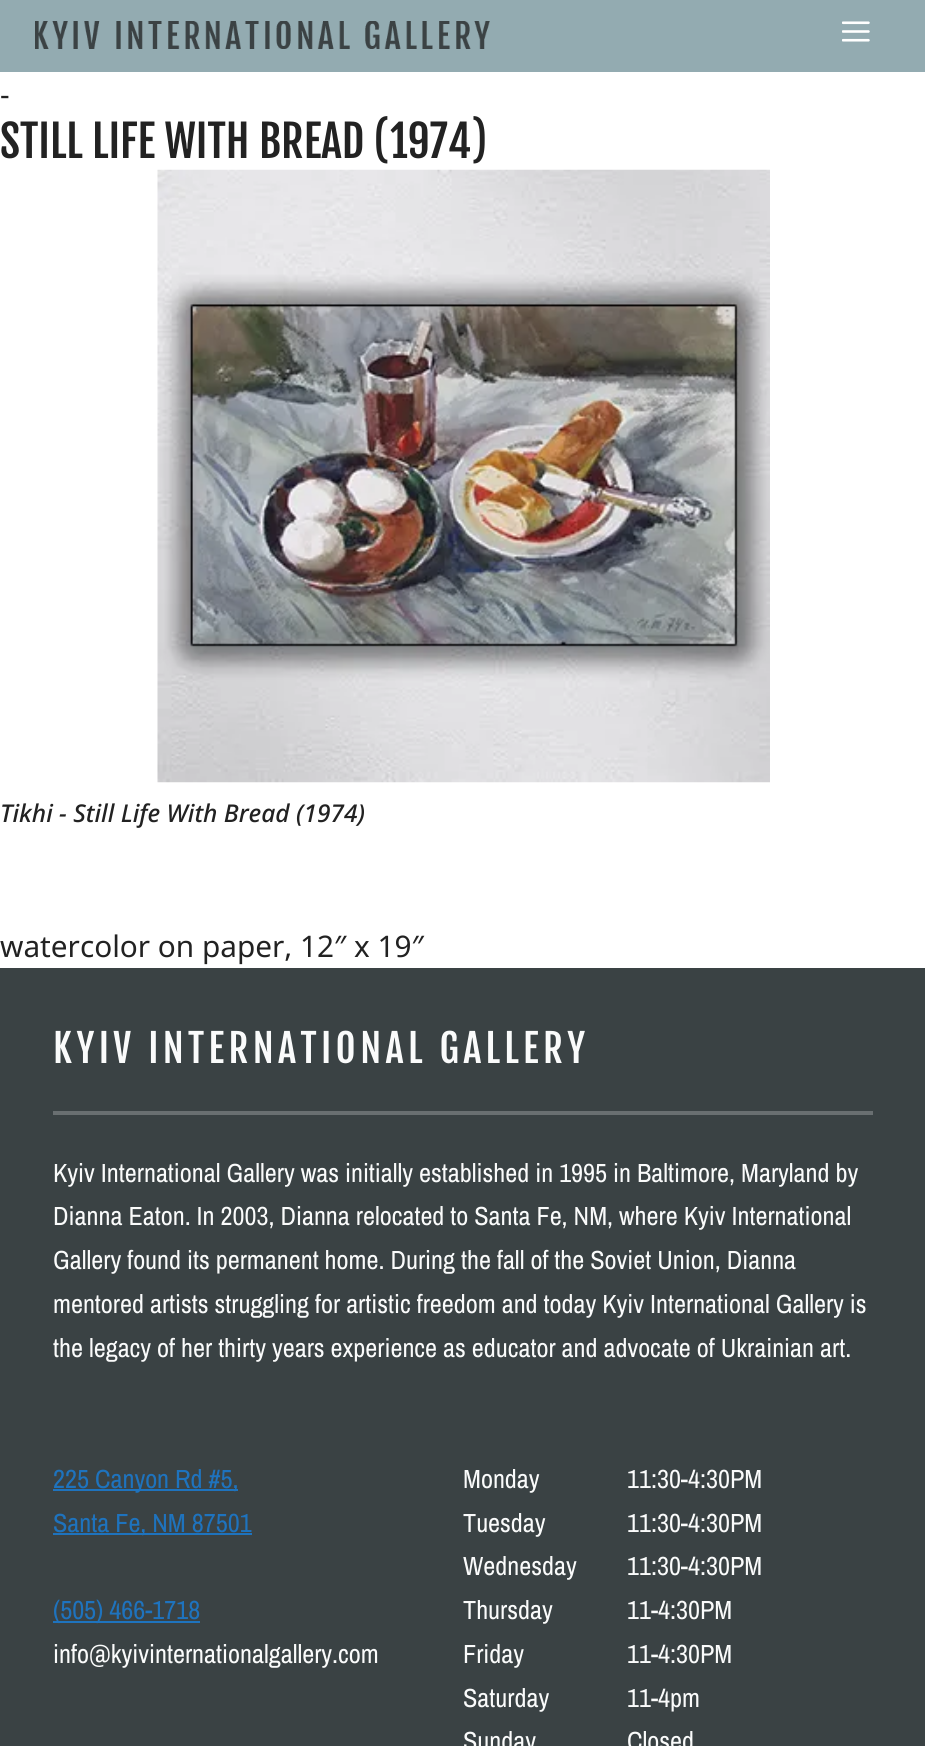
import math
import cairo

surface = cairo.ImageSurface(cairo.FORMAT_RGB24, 925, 1746)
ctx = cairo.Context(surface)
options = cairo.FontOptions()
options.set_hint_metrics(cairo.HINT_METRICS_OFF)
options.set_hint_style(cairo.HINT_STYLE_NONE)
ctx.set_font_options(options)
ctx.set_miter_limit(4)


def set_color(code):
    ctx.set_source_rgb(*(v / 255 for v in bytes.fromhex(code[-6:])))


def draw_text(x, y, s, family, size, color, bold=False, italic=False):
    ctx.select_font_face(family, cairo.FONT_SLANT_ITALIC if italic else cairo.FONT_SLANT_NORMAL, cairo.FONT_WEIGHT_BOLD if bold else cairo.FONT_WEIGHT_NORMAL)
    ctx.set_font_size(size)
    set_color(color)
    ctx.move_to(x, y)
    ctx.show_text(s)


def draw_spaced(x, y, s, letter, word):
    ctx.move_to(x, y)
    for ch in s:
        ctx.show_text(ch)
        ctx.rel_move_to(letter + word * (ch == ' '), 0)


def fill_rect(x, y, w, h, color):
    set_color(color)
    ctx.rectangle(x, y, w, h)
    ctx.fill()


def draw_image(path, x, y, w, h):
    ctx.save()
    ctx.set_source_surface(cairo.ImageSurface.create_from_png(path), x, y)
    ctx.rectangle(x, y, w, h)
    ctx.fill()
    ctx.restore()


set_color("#ffffff")
ctx.paint()
fill_rect(0, 0, 925, 72, "#93abb1")
draw_image("assets/img1.png", 35, 21, 455, 28)
draw_image("assets/img2.png", 842, 21, 28, 21)
draw_text(0, 105, "-", "Noto Sans", 29.75, "#222222")
draw_text(0, 158, "STILL LIFE WITH BREAD (1974)", "Fjalla One", 43.75, "#222222")
draw_image("assets/img3.png", 157, 169, 613, 614)
draw_text(0, 822, "Tikhi - Still Life With Bread (1974)", "Noto Sans Medium", 24.5, "#222222", italic=True)
draw_text(0, 957, "watercolor on paper, 12″ x 19″", "Noto Sans", 29.75, "#222222")
fill_rect(0, 968, 925, 778, "#3a4244")
ctx.select_font_face("Fjalla One")
ctx.set_font_size(38.5)
set_color("#fafbfb")
draw_spaced(53, 1063, "KYIV INTERNATIONAL GALLERY", 4.4, 0)
fill_rect(53, 1111, 820, 4, "#696f71")
draw_text(53, 1182, "Kyiv International Gallery was initially established in 1995 in Baltimore, Maryland by", "Archivo Narrow", 26.25, "#fafbfb")
draw_text(53, 1225, "Dianna Eaton. In 2003, Dianna relocated to Santa Fe, NM, where Kyiv International", "Archivo Narrow", 26.25, "#fafbfb")
draw_text(53, 1269, "Gallery found its permanent home. During the fall of the Soviet Union, Dianna", "Archivo Narrow", 26.25, "#fafbfb")
draw_text(53, 1313, "mentored artists struggling for artistic freedom and today Kyiv International Gallery is", "Archivo Narrow", 26.25, "#fafbfb")
draw_text(53, 1357, "the legacy of her thirty years experience as educator and advocate of Ukrainian art.", "Archivo Narrow", 26.25, "#fafbfb")
fill_rect(53, 1489, 185, 2, "#1e73be")
draw_text(53, 1488, "225 Canyon Rd #5,", "Archivo Narrow", 26.25, "#1e73be")
fill_rect(53, 1533, 199, 2, "#1e73be")
draw_text(53, 1532, "Santa Fe, NM 87501", "Archivo Narrow", 26.25, "#1e73be")
fill_rect(53, 1621, 147, 2, "#1e73be")
draw_text(53, 1619, "(505) 466-1718", "Archivo Narrow", 26.25, "#1e73be")
draw_text(53, 1663, "info@kyivinternationalgallery.com", "Archivo Narrow", 26.25, "#fafbfb")
draw_text(463, 1488, "Monday", "Archivo Narrow", 26.25, "#fafbfb")
draw_text(463, 1532, "Tuesday", "Archivo Narrow", 26.25, "#fafbfb")
draw_text(463, 1575, "Wednesday", "Archivo Narrow", 26.25, "#fafbfb")
draw_text(463, 1619, "Thursday", "Archivo Narrow", 26.25, "#fafbfb")
draw_text(463, 1663, "Friday", "Archivo Narrow", 26.25, "#fafbfb")
draw_text(463, 1707, "Saturday", "Archivo Narrow", 26.25, "#fafbfb")
draw_text(463, 1750, "Sunday", "Archivo Narrow", 26.25, "#fafbfb")
draw_text(627, 1488, "11:30-4:30PM", "Archivo Narrow", 26.25, "#fafbfb")
draw_text(627, 1532, "11:30-4:30PM", "Archivo Narrow", 26.25, "#fafbfb")
draw_text(627, 1575, "11:30-4:30PM", "Archivo Narrow", 26.25, "#fafbfb")
draw_text(627, 1619, "11-4:30PM", "Archivo Narrow", 26.25, "#fafbfb")
draw_text(627, 1663, "11-4:30PM", "Archivo Narrow", 26.25, "#fafbfb")
draw_text(627, 1707, "11-4pm", "Archivo Narrow", 26.25, "#fafbfb")
draw_text(627, 1750, "Closed", "Archivo Narrow", 26.25, "#fafbfb")
surface.write_to_png("output.png")
